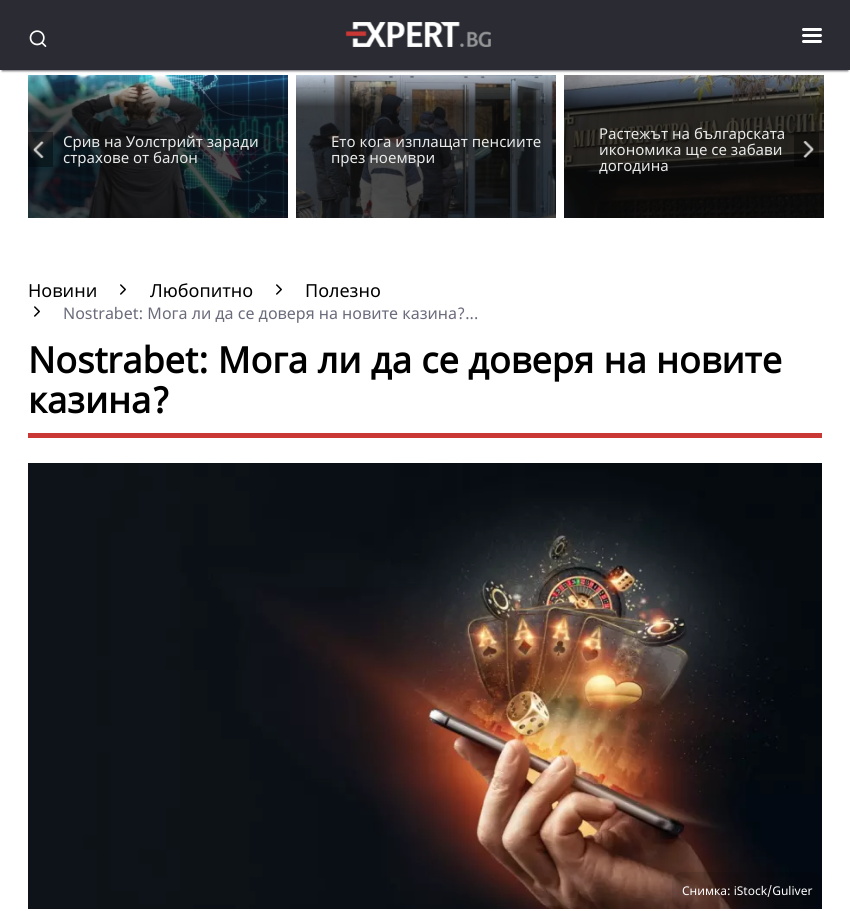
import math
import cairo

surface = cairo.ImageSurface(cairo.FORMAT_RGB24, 850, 911)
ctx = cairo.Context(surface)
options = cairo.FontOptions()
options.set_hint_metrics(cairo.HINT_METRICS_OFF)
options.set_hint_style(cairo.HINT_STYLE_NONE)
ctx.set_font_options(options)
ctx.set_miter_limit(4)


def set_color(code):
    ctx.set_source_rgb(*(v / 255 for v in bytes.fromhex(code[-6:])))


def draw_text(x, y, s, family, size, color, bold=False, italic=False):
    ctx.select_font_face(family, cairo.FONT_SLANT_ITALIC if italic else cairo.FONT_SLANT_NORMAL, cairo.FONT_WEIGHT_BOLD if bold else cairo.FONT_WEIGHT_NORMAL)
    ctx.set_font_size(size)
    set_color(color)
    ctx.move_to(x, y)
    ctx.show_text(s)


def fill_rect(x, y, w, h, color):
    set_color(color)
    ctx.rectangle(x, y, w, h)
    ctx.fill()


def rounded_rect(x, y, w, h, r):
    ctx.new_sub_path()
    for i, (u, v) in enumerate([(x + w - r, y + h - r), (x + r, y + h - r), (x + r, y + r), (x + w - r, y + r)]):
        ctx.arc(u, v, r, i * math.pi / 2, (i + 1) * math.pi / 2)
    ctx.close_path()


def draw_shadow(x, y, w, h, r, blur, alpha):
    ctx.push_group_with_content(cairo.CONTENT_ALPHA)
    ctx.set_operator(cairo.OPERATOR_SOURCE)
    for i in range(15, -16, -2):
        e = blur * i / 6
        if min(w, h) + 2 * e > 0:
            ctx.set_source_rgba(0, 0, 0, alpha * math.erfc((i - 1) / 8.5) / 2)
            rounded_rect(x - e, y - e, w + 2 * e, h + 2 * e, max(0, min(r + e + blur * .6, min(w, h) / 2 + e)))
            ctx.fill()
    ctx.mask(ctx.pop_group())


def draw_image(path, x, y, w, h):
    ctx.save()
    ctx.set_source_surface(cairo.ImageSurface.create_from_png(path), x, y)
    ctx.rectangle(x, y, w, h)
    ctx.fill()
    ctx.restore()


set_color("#ffffff")
ctx.paint()
set_color("#2a2b35")
draw_shadow(2, 5, 846, 66, 0, 1, 0.7)
fill_rect(0, 0, 850, 70, "#2a2b33")
draw_image("assets/img1.png", 29, 30, 18, 17)
draw_image("assets/img2.png", 345, 22, 146, 25)
set_color("#ffffff")
rounded_rect(802, 28, 20, 3, 1.5)
ctx.fill()
rounded_rect(802, 34, 20, 3, 1.5)
ctx.fill()
rounded_rect(802, 40, 20, 3, 1.5)
ctx.fill()
draw_image("assets/img4.png", 28, 75, 260, 143)
gradient = cairo.LinearGradient(158, 75, 158, 218)
gradient.add_color_stop_rgba(0, 0, 0, 0, 0)
gradient.add_color_stop_rgba(0.22, 0, 0, 0, 0.7)
ctx.set_source(gradient)
ctx.rectangle(28, 76, 260, 142)
ctx.fill()
ctx.set_source_rgba(0, 0, 0, 0.4)
ctx.rectangle(28, 132, 25, 35)
ctx.fill()
draw_image("assets/img3.png", 33, 141, 11, 18)
draw_text(63, 147, "Срив на Уолстрийт заради", "Noto Sans", 15, "#e8e9e9")
draw_text(63, 163, "страхове от балон", "Noto Sans", 15, "#e8e9e9")
draw_image("assets/img5.png", 296, 75, 260, 143)
gradient = cairo.LinearGradient(426, 75, 426, 218)
gradient.add_color_stop_rgba(0, 0, 0, 0, 0)
gradient.add_color_stop_rgba(0.22, 0, 0, 0, 0.7)
ctx.set_source(gradient)
ctx.rectangle(296, 76, 260, 142)
ctx.fill()
draw_text(331, 147, "Ето кога изплащат пенсиите", "Noto Sans", 15, "#e8e9e9")
draw_text(331, 163, "през ноември", "Noto Sans", 15, "#e8e9e9")
draw_image("assets/img6.png", 564, 75, 260, 143)
gradient = cairo.LinearGradient(694, 75, 694, 218)
gradient.add_color_stop_rgba(0, 0, 0, 0, 0)
gradient.add_color_stop_rgba(0.22, 0, 0, 0, 0.7)
ctx.set_source(gradient)
ctx.rectangle(564, 76, 260, 142)
ctx.fill()
draw_text(599, 139, "Растежът на българската", "Noto Sans", 15, "#e8e9e9")
draw_text(599, 155, "икономика ще се забави", "Noto Sans", 15, "#e8e9e9")
draw_text(599, 171, "догодина", "Noto Sans", 15, "#e8e9e9")
ctx.set_source_rgba(0, 0, 0, 0.4)
ctx.rectangle(794, 132, 25, 35)
ctx.fill()
draw_image("assets/img7.png", 803, 141, 11, 17)
draw_text(28, 297, "Новини", "Noto Sans", 18, "#000000")
draw_image("assets/img8.png", 120, 284, 6, 11)
draw_text(150, 297, "Любопитно", "Noto Sans", 18, "#000000")
draw_image("assets/img8.png", 276, 284, 6, 11)
draw_text(305, 297, "Полезно", "Noto Sans", 18, "#000000")
draw_image("assets/img8.png", 34, 306, 6, 11)
draw_text(63, 319, "Nostrabet: Мога ли да се доверя на новите казина?...", "Noto Sans", 16, "#6a6b7b")
draw_text(28, 373, "Nostrabet: Мога ли да се доверя на новите", "Noto Sans", 36, "#000000", bold=True)
draw_text(28, 413, "казина?", "Noto Sans", 36, "#000000", bold=True)
fill_rect(28, 433, 794, 5, "#c93835")
draw_image("assets/img9.png", 28, 463, 794, 446)
ctx.set_source_rgba(0, 0, 0, 0.1)
rounded_rect(672, 872, 150, 37, 10)
ctx.fill()
draw_text(682, 895, "Снимка: iStock/Guliver", "Noto Sans", 12, "#ffffff")
surface.write_to_png("output.png")
